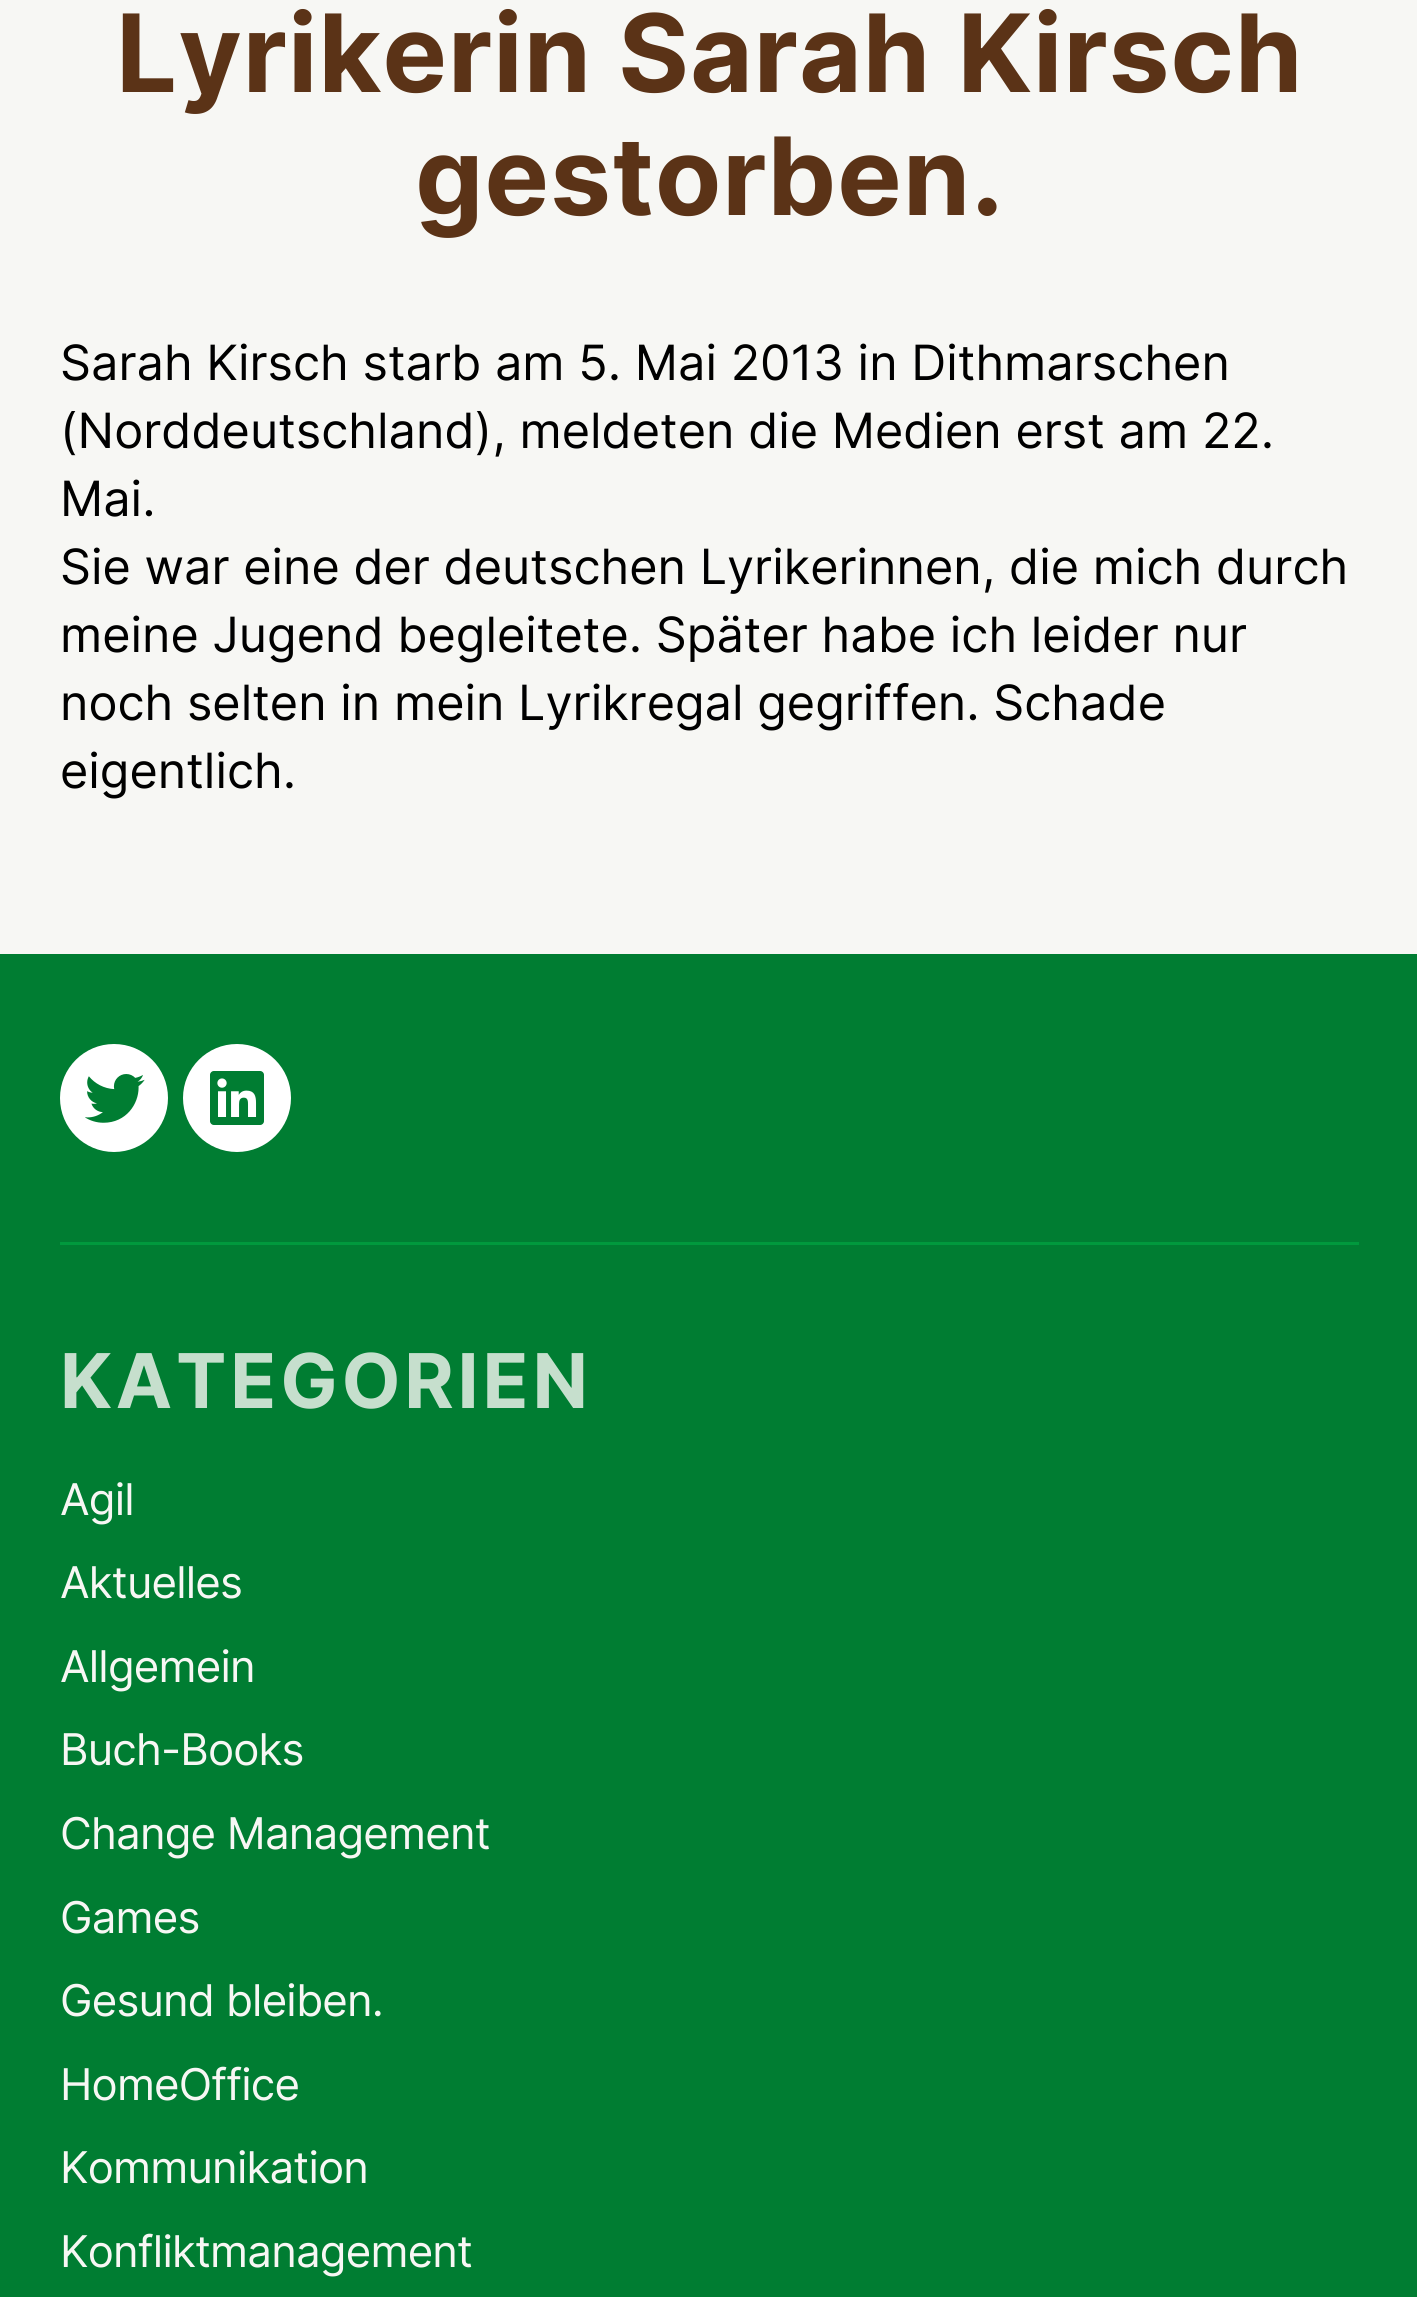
import math
import cairo

surface = cairo.ImageSurface(cairo.FORMAT_RGB24, 1417, 2297)
ctx = cairo.Context(surface)
options = cairo.FontOptions()
options.set_hint_metrics(cairo.HINT_METRICS_OFF)
options.set_hint_style(cairo.HINT_STYLE_NONE)
ctx.set_font_options(options)
ctx.set_miter_limit(4)


def set_color(code):
    ctx.set_source_rgb(*(v / 255 for v in bytes.fromhex(code[-6:])))


def draw_text(x, y, s, family, size, color, bold=False, italic=False):
    ctx.select_font_face(family, cairo.FONT_SLANT_ITALIC if italic else cairo.FONT_SLANT_NORMAL, cairo.FONT_WEIGHT_BOLD if bold else cairo.FONT_WEIGHT_NORMAL)
    ctx.set_font_size(size)
    set_color(color)
    ctx.move_to(x, y)
    ctx.show_text(s)


def draw_spaced(x, y, s, letter, word):
    ctx.move_to(x, y)
    for ch in s:
        ctx.show_text(ch)
        ctx.rel_move_to(letter + word * (ch == ' '), 0)


def fill_rect(x, y, w, h, color):
    set_color(color)
    ctx.rectangle(x, y, w, h)
    ctx.fill()


def draw_image(path, x, y, w, h):
    ctx.save()
    ctx.set_source_surface(cairo.ImageSurface.create_from_png(path), x, y)
    ctx.rectangle(x, y, w, h)
    ctx.fill()
    ctx.restore()


set_color("#f7f7f4")
ctx.paint()
ctx.select_font_face("Inter", cairo.FONT_SLANT_NORMAL, cairo.FONT_WEIGHT_BOLD)
ctx.set_font_size(108)
set_color("#5b3317")
draw_spaced(116, 92, "Lyrikerin Sarah Kirsch", 1.1, 0)
draw_spaced(415, 215, "gestorben.", 1.1, 0)
draw_text(60, 380, "Sarah Kirsch starb am 5. Mai 2013 in Dithmarschen", "Inter", 48.6, "#000000")
draw_text(60, 448, "(Norddeutschland), meldeten die Medien erst am 22.", "Inter", 48.6, "#000000")
draw_text(60, 516, "Mai.", "Inter", 48.6, "#000000")
draw_text(60, 584, "Sie war eine der deutschen Lyrikerinnen, die mich durch", "Inter", 48.6, "#000000")
draw_text(60, 652, "meine Jugend begleitete. Später habe ich leider nur", "Inter", 48.6, "#000000")
draw_text(60, 720, "noch selten in mein Lyrikregal gegriffen. Schade", "Inter", 48.6, "#000000")
draw_text(60, 788, "eigentlich.", "Inter", 48.6, "#000000")
fill_rect(0, 954, 1417, 1343, "#007d32")
fill_rect(60, 1242, 1299, 3, "#00993d")
set_color("#ffffff")
ctx.new_path()
ctx.arc(114, 1098, 54, 0, 2 * math.pi)
ctx.fill()
draw_image("assets/img1.png", 85, 1074, 60, 49)
ctx.arc(237, 1098, 54, 0, 2 * math.pi)
ctx.fill()
draw_image("assets/img2.png", 210, 1071, 54, 54)
ctx.select_font_face("Inter", cairo.FONT_SLANT_NORMAL, cairo.FONT_WEIGHT_BOLD)
ctx.set_font_size(75.5)
set_color("#c6dfcd")
draw_spaced(60, 1408, "KATEGORIEN", 3.75, 0)
ctx.select_font_face("Inter")
ctx.set_font_size(43.75)
set_color("#f7f7f4")
draw_spaced(60, 1515, "Agil", -0.8, 0)
draw_spaced(60, 1598, "Aktuelles", -0.8, 0)
draw_spaced(60, 1682, "Allgemein", -0.8, 0)
draw_spaced(60, 1765, "Buch-Books", -0.8, 0)
draw_spaced(60, 1849, "Change Management", -0.8, 0)
draw_spaced(60, 1933, "Games", -0.8, 0)
draw_spaced(60, 2016, "Gesund bleiben.", -0.8, 0)
draw_spaced(60, 2100, "HomeOffice", -0.8, 0)
draw_spaced(60, 2183, "Kommunikation", -0.8, 0)
draw_spaced(60, 2267, "Konfliktmanagement", -0.8, 0)
surface.write_to_png("output.png")
